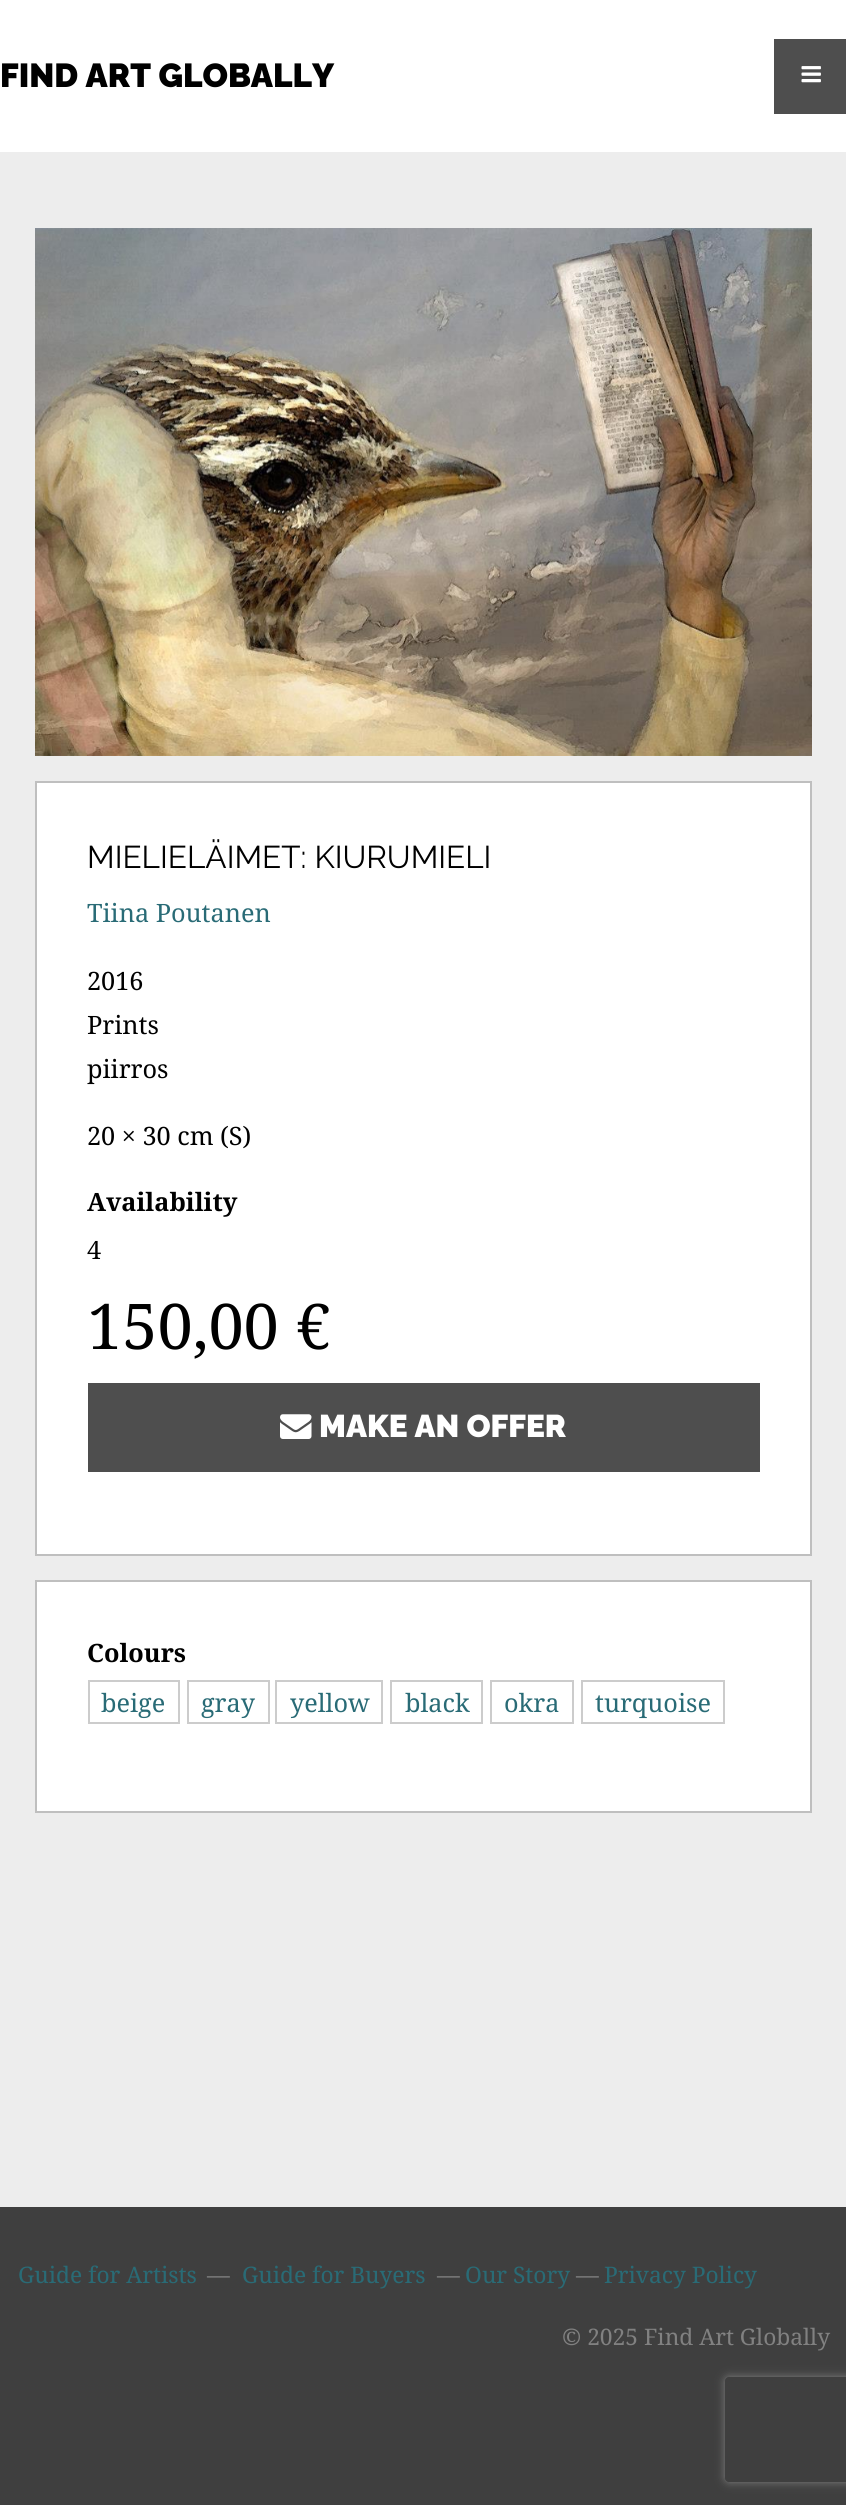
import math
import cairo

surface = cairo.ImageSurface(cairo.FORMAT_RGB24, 846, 2505)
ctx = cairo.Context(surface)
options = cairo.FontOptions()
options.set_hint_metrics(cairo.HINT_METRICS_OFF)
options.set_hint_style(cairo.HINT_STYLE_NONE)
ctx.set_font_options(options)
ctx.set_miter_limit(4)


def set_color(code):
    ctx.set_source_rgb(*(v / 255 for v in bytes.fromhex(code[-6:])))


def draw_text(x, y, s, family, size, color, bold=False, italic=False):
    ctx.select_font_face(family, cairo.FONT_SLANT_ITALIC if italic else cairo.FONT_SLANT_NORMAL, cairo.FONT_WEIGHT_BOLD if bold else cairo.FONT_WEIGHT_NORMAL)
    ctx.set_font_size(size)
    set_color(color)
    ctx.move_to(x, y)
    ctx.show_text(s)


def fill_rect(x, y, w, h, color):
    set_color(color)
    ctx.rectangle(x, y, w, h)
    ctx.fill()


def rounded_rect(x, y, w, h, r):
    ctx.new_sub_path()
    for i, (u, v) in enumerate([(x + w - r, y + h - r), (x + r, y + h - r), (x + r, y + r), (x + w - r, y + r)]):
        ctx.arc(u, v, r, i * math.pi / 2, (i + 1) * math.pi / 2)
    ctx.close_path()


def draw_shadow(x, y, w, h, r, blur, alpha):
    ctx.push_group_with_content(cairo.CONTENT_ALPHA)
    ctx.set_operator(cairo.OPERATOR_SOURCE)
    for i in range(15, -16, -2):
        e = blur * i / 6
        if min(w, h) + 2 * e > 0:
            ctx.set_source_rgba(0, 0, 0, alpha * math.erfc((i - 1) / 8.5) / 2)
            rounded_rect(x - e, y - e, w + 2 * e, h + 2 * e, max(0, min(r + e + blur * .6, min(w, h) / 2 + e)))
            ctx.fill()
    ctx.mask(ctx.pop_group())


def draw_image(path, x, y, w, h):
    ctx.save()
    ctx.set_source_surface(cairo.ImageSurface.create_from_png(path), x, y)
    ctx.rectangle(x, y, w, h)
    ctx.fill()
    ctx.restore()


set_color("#ededed")
ctx.paint()
fill_rect(0, 0, 846, 152, "#ffffff")
draw_text(0, 87, "FIND ART GLOBALLY", "Raleway Black", 33.25, "#000000")
fill_rect(774, 39, 72, 75, "#4e4e4e")
draw_image("assets/img1.png", 801, 66, 20, 17)
draw_image("assets/img2.png", 35, 228, 777, 528)
set_color("#ffffff")
ctx.rectangle(36, 782, 775, 773)
ctx.fill_preserve()
set_color("#bfbfbf")
ctx.stroke()
draw_text(87, 868, "MIELIELÄIMET: KIURUMIELI", "Raleway", 31.5, "#000000")
draw_text(87, 922, "Tiina Poutanen", "Noto Serif", 25.25, "#296b76")
draw_text(87, 990, "2016", "Noto Serif", 25.25, "#000000")
draw_text(87, 1034, "Prints", "Noto Serif", 25.25, "#000000")
draw_text(87, 1078, "piirros", "Noto Serif", 25.25, "#000000")
draw_text(87, 1145, "20 × 30 cm (S)", "Noto Serif", 25.25, "#000000")
draw_text(87, 1211, "Availability", "Noto Serif", 25.25, "#000000", bold=True)
draw_text(87, 1259, "4", "Noto Serif", 25.25, "#000000")
draw_text(87, 1349, "150,00 €", "Noto Serif", 63, "#000000")
fill_rect(88, 1383, 672, 89, "#4e4e4e")
draw_image("assets/img3.png", 280, 1414, 32, 25)
draw_text(319, 1437, "MAKE AN OFFER", "Raleway Black", 31.5, "#ffffff")
ctx.rectangle(36, 1581, 775, 231)
ctx.fill_preserve()
set_color("#bfbfbf")
ctx.stroke()
draw_text(87, 1662, "Colours", "Noto Serif", 25.25, "#000000", bold=True)
ctx.rectangle(89, 1681, 90, 42)
set_color("#cccccc")
ctx.stroke()
draw_text(101, 1712, "beige", "Noto Serif", 25.25, "#296b76")
ctx.rectangle(188, 1681, 81, 42)
set_color("#cccccc")
ctx.stroke()
draw_text(201, 1712, "gray", "Noto Serif", 25.25, "#296b76")
ctx.rectangle(276, 1681, 106, 42)
set_color("#cccccc")
ctx.stroke()
draw_text(290, 1712, "yellow", "Noto Serif", 25.25, "#296b76")
ctx.rectangle(391, 1681, 91, 42)
set_color("#cccccc")
ctx.stroke()
draw_text(405, 1712, "black", "Noto Serif", 25.25, "#296b76")
ctx.rectangle(491, 1681, 82, 42)
set_color("#cccccc")
ctx.stroke()
draw_text(504, 1712, "okra", "Noto Serif", 25.25, "#296b76")
ctx.rectangle(582, 1681, 142, 42)
set_color("#cccccc")
ctx.stroke()
draw_text(595, 1712, "turquoise", "Noto Serif", 25.25, "#296b76")
fill_rect(0, 2207, 846, 298, "#3f3f3f")
draw_text(18, 2283, "Guide for Artists", "Noto Serif", 22.75, "#296b76")
draw_text(207, 2283, "—", "Noto Serif", 22.75, "#818181")
draw_text(242, 2283, "Guide for Buyers", "Noto Serif", 22.75, "#296b76")
draw_text(437, 2283, "—", "Noto Serif", 22.75, "#818181")
draw_text(465, 2283, "Our Story", "Noto Serif", 22.75, "#296b76")
draw_text(576, 2283, "—", "Noto Serif", 22.75, "#818181")
draw_text(604, 2283, "Privacy Policy", "Noto Serif", 22.75, "#296b76")
draw_text(562, 2345, "© 2025 Find Art Globally", "Noto Serif", 22.75, "#818181")
ctx.save()
ctx.set_fill_rule(cairo.FILL_RULE_EVEN_ODD)
ctx.new_path()
ctx.move_to(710, 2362)
ctx.line_to(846, 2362)
ctx.line_to(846, 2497)
ctx.line_to(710, 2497)
ctx.close_path()
ctx.move_to(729, 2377)
ctx.line_to(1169, 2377)
ctx.curve_to(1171, 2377, 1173, 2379, 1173, 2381)
ctx.line_to(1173, 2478)
ctx.curve_to(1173, 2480, 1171, 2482, 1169, 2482)
ctx.line_to(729, 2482)
ctx.curve_to(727, 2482, 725, 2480, 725, 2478)
ctx.line_to(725, 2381)
ctx.curve_to(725, 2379, 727, 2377, 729, 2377)
ctx.close_path()
ctx.clip()
set_color("#808080")
draw_shadow(725, 2377, 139, 105, 4, 4.5, 1)
ctx.restore()
surface.write_to_png("output.png")
